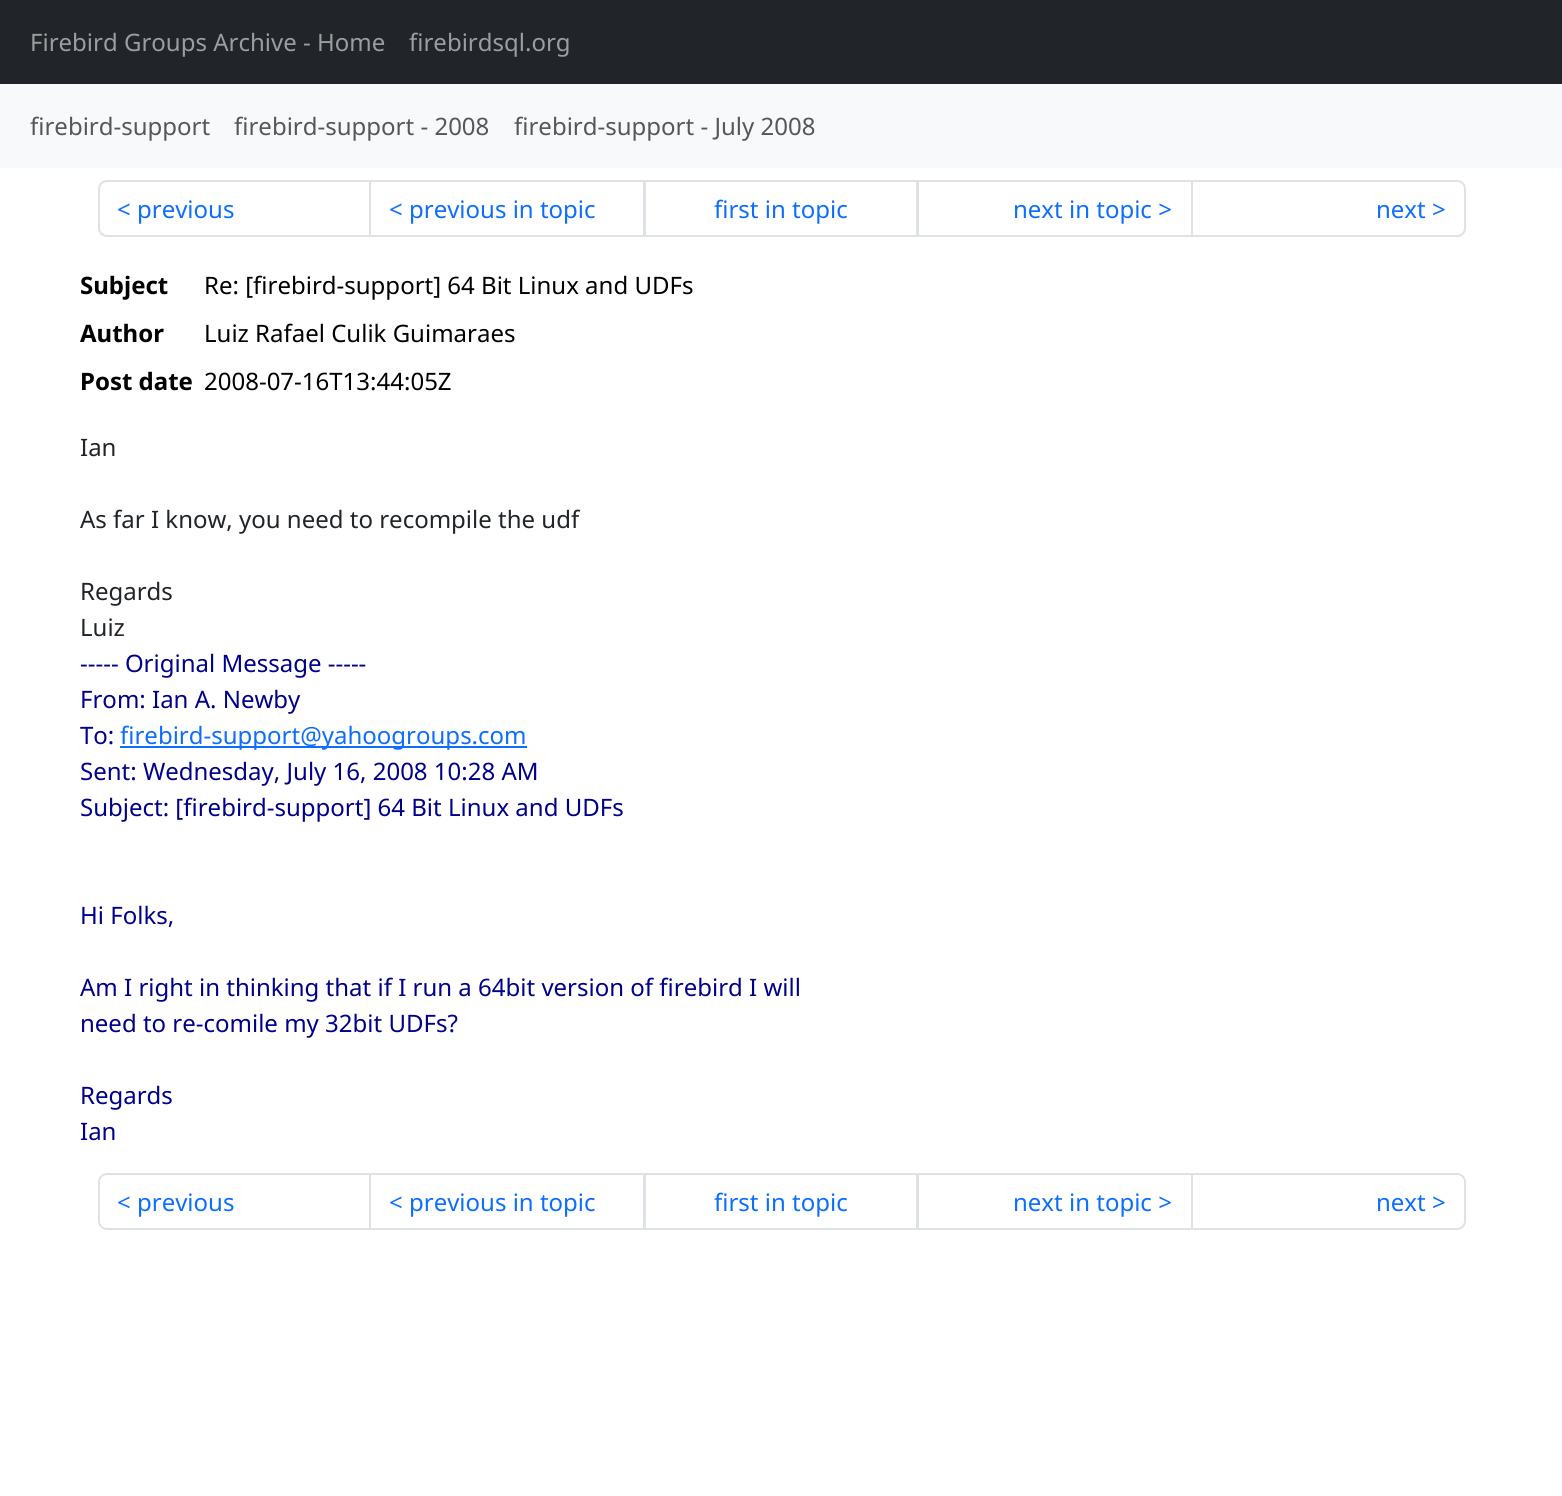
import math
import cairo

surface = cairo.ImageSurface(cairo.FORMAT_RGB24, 1562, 1496)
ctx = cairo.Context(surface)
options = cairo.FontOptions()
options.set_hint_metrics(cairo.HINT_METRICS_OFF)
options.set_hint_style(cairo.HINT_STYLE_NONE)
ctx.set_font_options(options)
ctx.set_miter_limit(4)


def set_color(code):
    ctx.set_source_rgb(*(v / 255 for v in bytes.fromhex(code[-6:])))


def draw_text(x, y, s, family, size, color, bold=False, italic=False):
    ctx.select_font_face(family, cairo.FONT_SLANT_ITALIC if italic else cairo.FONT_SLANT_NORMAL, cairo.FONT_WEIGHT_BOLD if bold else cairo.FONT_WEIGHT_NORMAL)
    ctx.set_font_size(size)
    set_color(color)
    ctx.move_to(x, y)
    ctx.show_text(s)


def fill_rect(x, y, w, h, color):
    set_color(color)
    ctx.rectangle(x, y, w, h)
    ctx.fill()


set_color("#ffffff")
ctx.paint()
fill_rect(0, 0, 1562, 84, "#212529")
draw_text(30, 51, "Firebird Groups Archive - Home", "Noto Sans", 24, "#9b9d9f")
draw_text(409, 51, "firebirdsql.org", "Noto Sans", 24, "#9b9d9f")
fill_rect(0, 84, 1562, 84, "#f8f9fa")
draw_text(30, 135, "firebird-support", "Noto Sans", 24, "#575758")
draw_text(234, 135, "firebird-support - 2008", "Noto Sans", 24, "#575758")
draw_text(514, 135, "firebird-support - July 2008", "Noto Sans", 24, "#575758")
ctx.new_path()
ctx.move_to(107, 181)
ctx.line_to(370, 181)
ctx.line_to(370, 236)
ctx.line_to(107, 236)
ctx.curve_to(102.5, 236, 99, 232.5, 99, 228)
ctx.line_to(99, 189)
ctx.curve_to(99, 184.5, 102.5, 181, 107, 181)
ctx.close_path()
set_color("#dee2e6")
ctx.stroke()
draw_text(117, 218, "< previous", "Noto Sans", 24, "#0d6efd")
ctx.rectangle(370, 181, 274, 55)
set_color("#dee2e6")
ctx.stroke()
draw_text(389, 218, "< previous in topic", "Noto Sans", 24, "#0d6efd")
ctx.rectangle(645, 181, 272, 55)
set_color("#dee2e6")
ctx.stroke()
draw_text(714, 218, "first in topic", "Noto Sans", 24, "#0d6efd")
ctx.rectangle(918, 181, 274, 55)
set_color("#dee2e6")
ctx.stroke()
draw_text(1013, 218, "next in topic >", "Noto Sans", 24, "#0d6efd")
set_color("#ffffff")
ctx.new_path()
ctx.move_to(1192, 181)
ctx.line_to(1457, 181)
ctx.curve_to(1461.5, 181, 1465, 184.5, 1465, 189)
ctx.line_to(1465, 228)
ctx.curve_to(1465, 232.5, 1461.5, 236, 1457, 236)
ctx.line_to(1192, 236)
ctx.close_path()
ctx.fill_preserve()
set_color("#dee2e6")
ctx.stroke()
draw_text(1376, 218, "next >", "Noto Sans", 24, "#0d6efd")
draw_text(80, 294, "Subject", "Noto Sans", 24, "#000000", bold=True)
draw_text(204, 294, "Re: [firebird-support] 64 Bit Linux and UDFs", "Noto Sans", 24, "#000000")
draw_text(80, 342, "Author", "Noto Sans", 24, "#000000", bold=True)
draw_text(204, 342, "Luiz Rafael Culik Guimaraes", "Noto Sans", 24, "#000000")
draw_text(80, 390, "Post date", "Noto Sans", 24, "#000000", bold=True)
draw_text(204, 390, "2008-07-16T13:44:05Z", "Noto Sans", 24, "#000000")
draw_text(80, 456, "Ian", "Noto Sans", 24, "#212529")
draw_text(80, 528, "As far I know, you need to recompile the udf", "Noto Sans", 24, "#212529")
draw_text(80, 600, "Regards", "Noto Sans", 24, "#212529")
draw_text(80, 636, "Luiz", "Noto Sans", 24, "#212529")
draw_text(80, 672, "----- Original Message -----", "Noto Sans", 24, "#00008b")
draw_text(80, 708, "From: Ian A. Newby", "Noto Sans", 24, "#00008b")
draw_text(80, 744, "To:", "Noto Sans", 24, "#00008b")
fill_rect(120, 746, 407, 2, "#0d6efd")
draw_text(120, 744, "firebird-support@yahoogroups.com", "Noto Sans", 24, "#0d6efd")
draw_text(80, 780, "Sent: Wednesday, July 16, 2008 10:28 AM", "Noto Sans", 24, "#00008b")
draw_text(80, 816, "Subject: [firebird-support] 64 Bit Linux and UDFs", "Noto Sans", 24, "#00008b")
draw_text(80, 924, "Hi Folks,", "Noto Sans", 24, "#00008b")
draw_text(80, 996, "Am I right in thinking that if I run a 64bit version of firebird I will", "Noto Sans", 24, "#00008b")
draw_text(80, 1032, "need to re-comile my 32bit UDFs?", "Noto Sans", 24, "#00008b")
draw_text(80, 1104, "Regards", "Noto Sans", 24, "#00008b")
draw_text(80, 1140, "Ian", "Noto Sans", 24, "#00008b")
ctx.new_path()
ctx.move_to(107, 1174)
ctx.line_to(370, 1174)
ctx.line_to(370, 1229)
ctx.line_to(107, 1229)
ctx.curve_to(102.5, 1229, 99, 1225.5, 99, 1221)
ctx.line_to(99, 1182)
ctx.curve_to(99, 1177.5, 102.5, 1174, 107, 1174)
ctx.close_path()
set_color("#dee2e6")
ctx.stroke()
draw_text(117, 1211, "< previous", "Noto Sans", 24, "#0d6efd")
ctx.rectangle(370, 1174, 274, 55)
set_color("#dee2e6")
ctx.stroke()
draw_text(389, 1211, "< previous in topic", "Noto Sans", 24, "#0d6efd")
ctx.rectangle(645, 1174, 272, 55)
set_color("#dee2e6")
ctx.stroke()
draw_text(714, 1211, "first in topic", "Noto Sans", 24, "#0d6efd")
ctx.rectangle(918, 1174, 274, 55)
set_color("#dee2e6")
ctx.stroke()
draw_text(1013, 1211, "next in topic >", "Noto Sans", 24, "#0d6efd")
set_color("#ffffff")
ctx.new_path()
ctx.move_to(1192, 1174)
ctx.line_to(1457, 1174)
ctx.curve_to(1461.5, 1174, 1465, 1177.5, 1465, 1182)
ctx.line_to(1465, 1221)
ctx.curve_to(1465, 1225.5, 1461.5, 1229, 1457, 1229)
ctx.line_to(1192, 1229)
ctx.close_path()
ctx.fill_preserve()
set_color("#dee2e6")
ctx.stroke()
draw_text(1376, 1211, "next >", "Noto Sans", 24, "#0d6efd")
surface.write_to_png("output.png")
